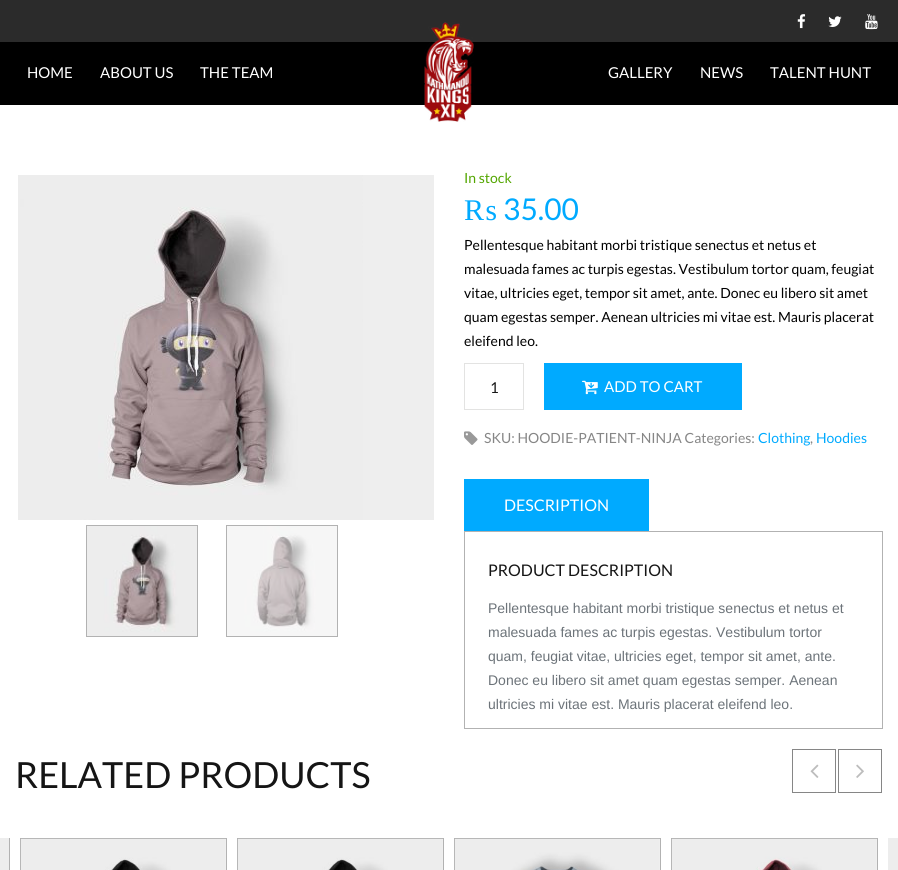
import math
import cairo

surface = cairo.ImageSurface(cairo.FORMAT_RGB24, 898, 870)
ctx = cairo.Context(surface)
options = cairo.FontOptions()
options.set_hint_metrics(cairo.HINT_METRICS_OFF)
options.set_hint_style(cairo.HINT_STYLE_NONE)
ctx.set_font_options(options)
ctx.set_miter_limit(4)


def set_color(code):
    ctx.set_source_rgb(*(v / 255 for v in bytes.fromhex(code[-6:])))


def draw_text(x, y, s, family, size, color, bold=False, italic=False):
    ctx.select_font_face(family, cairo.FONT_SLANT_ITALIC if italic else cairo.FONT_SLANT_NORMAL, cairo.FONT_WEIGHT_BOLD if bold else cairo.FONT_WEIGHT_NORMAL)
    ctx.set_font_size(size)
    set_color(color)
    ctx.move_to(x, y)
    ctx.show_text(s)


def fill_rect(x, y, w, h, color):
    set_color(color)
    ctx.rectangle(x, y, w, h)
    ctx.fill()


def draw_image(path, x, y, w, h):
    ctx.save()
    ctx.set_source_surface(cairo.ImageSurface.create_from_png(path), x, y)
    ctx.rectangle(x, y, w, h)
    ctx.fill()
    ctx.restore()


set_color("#ffffff")
ctx.paint()
fill_rect(0, 0, 898, 42, "#2b2b2b")
draw_image("assets/img1.png", 797, 14, 9, 15)
draw_image("assets/img2.png", 828, 16, 14, 11)
draw_image("assets/img3.png", 865, 14, 13, 16)
fill_rect(0, 42, 898, 63, "#000000")
draw_text(27, 78, "HOME", "Lato", 15, "#ffffff")
draw_text(100, 78, "ABOUT US", "Lato", 15, "#ffffff")
draw_text(200, 78, "THE TEAM", "Lato", 15, "#ffffff")
draw_image("assets/img4.png", 424, 22, 50, 100)
draw_text(608, 78, "GALLERY", "Lato", 15, "#ffffff")
draw_text(700, 78, "NEWS", "Lato", 15, "#ffffff")
draw_text(770, 78, "TALENT HUNT", "Lato", 15, "#ffffff")
draw_image("assets/img5.png", 18, 175, 345, 345)
fill_rect(363, 175, 71, 345, "#eeeeee")
ctx.rectangle(86.5, 525.5, 111, 111)
set_color("#b2b2b2")
ctx.set_line_width(1)
ctx.stroke()
draw_image("assets/img6.png", 87, 526, 110, 110)
ctx.rectangle(226.5, 525.5, 111, 111)
ctx.stroke()
draw_image("assets/img7.png", 227, 526, 110, 110)
draw_text(464, 183, "In stock", "Lato", 14, "#53a600")
draw_text(464, 220, "₨", "Liberation Serif", 30, "#00aaff")
draw_text(503, 220, "35.00", "Lato", 30, "#00aaff")
draw_text(464, 250, "Pellentesque habitant morbi tristique senectus et netus et", "Lato", 14, "#000000")
draw_text(464, 274, "malesuada fames ac turpis egestas. Vestibulum tortor quam, feugiat", "Lato", 14, "#000000")
draw_text(464, 298, "vitae, ultricies eget, tempor sit amet, ante. Donec eu libero sit amet", "Lato", 14, "#000000")
draw_text(464, 322, "quam egestas semper. Aenean ultricies mi vitae est. Mauris placerat", "Lato", 14, "#000000")
draw_text(464, 346, "eleifend leo.", "Lato", 14, "#000000")
ctx.rectangle(464.5, 363.5, 59, 46)
set_color("#e3e3e2")
ctx.stroke()
draw_text(490, 393, "1", "Lato", 15, "#151515")
fill_rect(544, 363, 198, 47, "#00aaff")
draw_image("assets/img8.png", 582, 380, 16, 15)
draw_text(604, 392, "ADD TO CART", "Lato", 15, "#ffffff")
draw_image("assets/img9.png", 464, 431, 14, 14)
draw_text(484, 443, "SKU: HOODIE-PATIENT-NINJA Categories:", "Lato", 14, "#868686")
draw_text(758, 443, "Clothing", "Lato", 14, "#00aaff")
draw_text(810, 443, ",", "Lato", 14, "#868686")
draw_text(816, 443, "Hoodies", "Lato", 14, "#00aaff")
fill_rect(464, 479, 185, 52, "#00aaff")
draw_text(504, 511, "DESCRIPTION", "Lato", 16, "#ffffff")
ctx.rectangle(464.5, 531.5, 418, 197)
set_color("#b2b2b2")
ctx.stroke()
draw_text(488, 576, "PRODUCT DESCRIPTION", "Lato", 16, "#151515")
draw_text(488, 613, "Pellentesque habitant morbi tristique senectus et netus et", "Liberation Sans", 14, "#6c7379")
draw_text(488, 637, "malesuada fames ac turpis egestas. Vestibulum tortor", "Liberation Sans", 14, "#6c7379")
draw_text(488, 661, "quam, feugiat vitae, ultricies eget, tempor sit amet, ante.", "Liberation Sans", 14, "#6c7379")
draw_text(488, 685, "Donec eu libero sit amet quam egestas semper. Aenean", "Liberation Sans", 14, "#6c7379")
draw_text(488, 709, "ultricies mi vitae est. Mauris placerat eleifend leo.", "Liberation Sans", 14, "#6c7379")
draw_text(15, 788, "RELATED PRODUCTS", "Lato", 36, "#151515")
ctx.rectangle(792.5, 749.5, 43, 43)
set_color("#868686")
ctx.stroke()
draw_image("assets/img10.png", 810, 764, 9, 14)
ctx.rectangle(838.5, 749.5, 43, 43)
ctx.stroke()
draw_image("assets/img11.png", 856, 764, 8, 14)
ctx.rectangle(-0.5, 838.5, 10, 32)
set_color("#b2b2b2")
ctx.stroke()
fill_rect(0, 838, 9, 32, "#ededed")
ctx.rectangle(20.5, 838.5, 206, 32)
set_color("#b2b2b2")
ctx.stroke()
draw_image("assets/img12.png", 20, 838, 206, 32)
ctx.rectangle(237.5, 838.5, 206, 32)
ctx.stroke()
draw_image("assets/img13.png", 237, 838, 206, 32)
ctx.rectangle(454.5, 838.5, 206, 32)
ctx.stroke()
draw_image("assets/img14.png", 454, 838, 206, 32)
ctx.rectangle(671.5, 838.5, 206, 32)
ctx.stroke()
draw_image("assets/img15.png", 671, 838, 206, 32)
fill_rect(888, 838, 10, 32, "#ededed")
surface.write_to_png("output.png")
